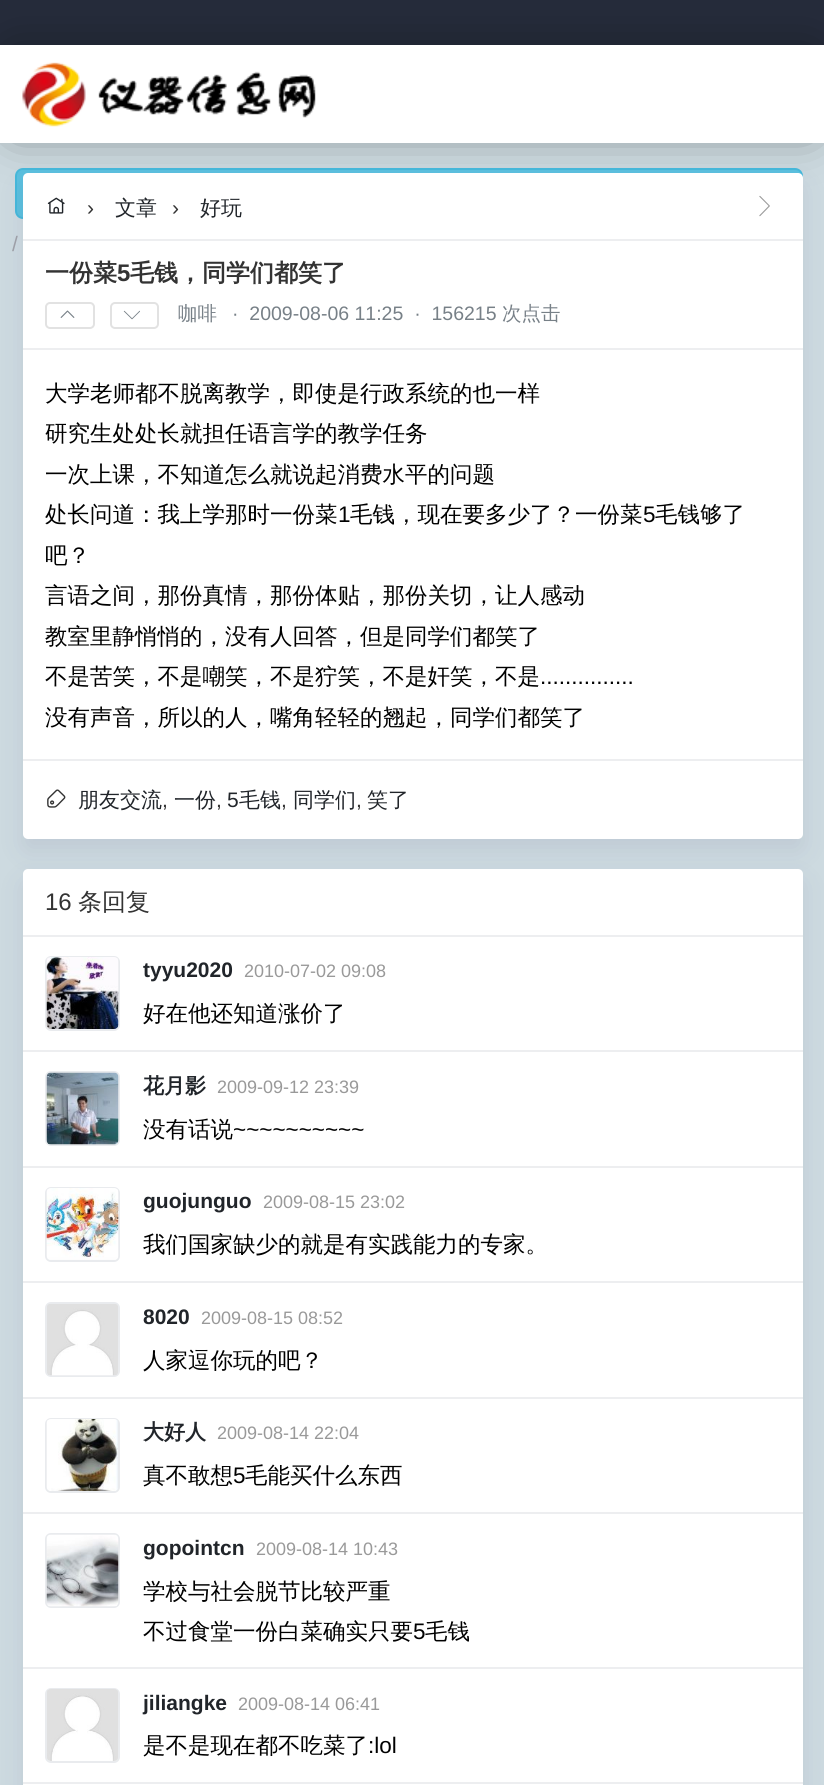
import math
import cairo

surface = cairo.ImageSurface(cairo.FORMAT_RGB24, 824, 1785)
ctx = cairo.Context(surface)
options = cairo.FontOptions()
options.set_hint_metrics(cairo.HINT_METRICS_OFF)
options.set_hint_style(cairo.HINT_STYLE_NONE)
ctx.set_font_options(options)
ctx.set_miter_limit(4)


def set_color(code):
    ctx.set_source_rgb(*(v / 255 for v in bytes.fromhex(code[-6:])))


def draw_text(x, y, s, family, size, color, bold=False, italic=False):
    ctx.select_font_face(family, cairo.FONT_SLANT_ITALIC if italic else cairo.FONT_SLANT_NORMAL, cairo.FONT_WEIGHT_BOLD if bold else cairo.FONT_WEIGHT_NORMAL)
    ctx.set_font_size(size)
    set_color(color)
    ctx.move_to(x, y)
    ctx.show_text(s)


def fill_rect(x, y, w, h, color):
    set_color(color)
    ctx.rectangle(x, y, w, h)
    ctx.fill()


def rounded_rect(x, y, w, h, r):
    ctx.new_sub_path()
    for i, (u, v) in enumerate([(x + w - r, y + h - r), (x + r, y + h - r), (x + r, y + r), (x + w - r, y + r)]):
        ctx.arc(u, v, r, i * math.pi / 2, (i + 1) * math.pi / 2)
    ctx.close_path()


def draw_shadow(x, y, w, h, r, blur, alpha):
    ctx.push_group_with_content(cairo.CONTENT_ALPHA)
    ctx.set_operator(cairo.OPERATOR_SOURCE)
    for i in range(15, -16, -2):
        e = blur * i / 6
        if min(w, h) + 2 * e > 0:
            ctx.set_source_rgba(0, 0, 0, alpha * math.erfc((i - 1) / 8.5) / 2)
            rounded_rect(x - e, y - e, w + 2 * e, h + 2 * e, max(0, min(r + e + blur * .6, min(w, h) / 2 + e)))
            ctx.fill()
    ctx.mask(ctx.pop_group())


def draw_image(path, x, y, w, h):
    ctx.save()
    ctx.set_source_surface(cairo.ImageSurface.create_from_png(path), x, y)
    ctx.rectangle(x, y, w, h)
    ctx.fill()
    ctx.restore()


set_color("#cddae0")
ctx.paint()
fill_rect(0, 0, 824, 45, "#252b3a")
set_color("#000000")
draw_shadow(15, 60, 795, 68, 0, 24, 0.5)
fill_rect(0, 45, 824, 98, "#ffffff")
draw_image("assets/img1.png", 22, 62, 294, 65)
set_color("#5bc0de")
rounded_rect(16, 169, 786, 49, 7)
ctx.fill_preserve()
set_color("#46b8da")
ctx.stroke()
draw_text(12, 251, "/", "Liberation Sans", 21, "#a0a2a8")
set_color("#3e396b")
draw_shadow(23, 185, 780, 666, 5, 12, 0.1)
set_color("#ffffff")
rounded_rect(23, 173, 780, 666, 5)
ctx.fill()
fill_rect(23, 239, 780, 2, "#edeef0")
draw_image("assets/img2.png", 47, 197, 18, 17)
draw_text(87, 215, "›", "Liberation Sans", 21, "#333333")
draw_text(115, 215, "文章", "WenQuanYi Zen Hei Medium", 21, "#21252a")
draw_text(172, 215, "›", "Liberation Sans", 21, "#333333")
draw_text(200, 215, "好玩", "WenQuanYi Zen Hei Medium", 21, "#21252a")
draw_image("assets/img3.png", 759, 195, 11, 22)
fill_rect(23, 348, 780, 2, "#edeef0")
draw_text(45, 281, "一份菜", "WenQuanYi Zen Hei", 24, "#333333", bold=True)
draw_text(117, 281, "5", "Liberation Sans", 24, "#333333", bold=True)
draw_text(130, 281, "毛钱，同学们都笑了", "WenQuanYi Zen Hei", 24, "#333333", bold=True)
rounded_rect(46, 303, 48, 25, 4)
set_color("#e2e2e2")
ctx.stroke()
draw_image("assets/img4.png", 60, 310, 15, 8)
rounded_rect(111, 303, 47, 25, 4)
ctx.stroke()
draw_image("assets/img5.png", 123, 310, 17, 10)
draw_text(178, 320, "咖啡", "WenQuanYi Zen Hei Medium", 19.5, "#778087")
draw_text(232, 320, "·  2009-08-06 11:25  ·  156215", "Liberation Sans", 19.5, "#778087")
draw_text(502, 320, "次点击", "WenQuanYi Zen Hei Medium", 19.5, "#778087")
draw_text(45, 401, "大学老师都不脱离教学，即使是行政系统的也一样", "WenQuanYi Zen Hei Medium", 22.5, "#000000")
draw_text(45, 441, "研究生处处长就担任语言学的教学任务", "WenQuanYi Zen Hei Medium", 22.5, "#000000")
draw_text(45, 482, "一次上课，不知道怎么就说起消费水平的问题", "WenQuanYi Zen Hei Medium", 22.5, "#000000")
draw_text(45, 522, "处长问道：我上学那时一份菜", "WenQuanYi Zen Hei Medium", 22.5, "#000000")
draw_text(338, 522, "1", "Liberation Sans", 22.5, "#000000")
draw_text(350, 522, "毛钱，现在要多少了？一份菜", "WenQuanYi Zen Hei Medium", 22.5, "#000000")
draw_text(643, 522, "5", "Liberation Sans", 22.5, "#000000")
draw_text(655, 522, "毛钱够了", "WenQuanYi Zen Hei Medium", 22.5, "#000000")
draw_text(45, 563, "吧？", "WenQuanYi Zen Hei Medium", 22.5, "#000000")
draw_text(45, 603, "言语之间，那份真情，那份体贴，那份关切，让人感动", "WenQuanYi Zen Hei Medium", 22.5, "#000000")
draw_text(45, 644, "教室里静悄悄的，没有人回答，但是同学们都笑了", "WenQuanYi Zen Hei Medium", 22.5, "#000000")
draw_text(45, 684, "不是苦笑，不是嘲笑，不是狞笑，不是奸笑，不是", "WenQuanYi Zen Hei Medium", 22.5, "#000000")
draw_text(540, 684, "...............", "Liberation Sans", 22.5, "#000000")
draw_text(45, 725, "没有声音，所以的人，嘴角轻轻的翘起，同学们都笑了", "WenQuanYi Zen Hei Medium", 22.5, "#000000")
fill_rect(23, 759, 780, 2, "#edeef0")
draw_image("assets/img6.png", 47, 789, 19, 19)
draw_text(78, 807, "朋友交流", "WenQuanYi Zen Hei Medium", 21, "#21252a")
draw_text(162, 807, ",", "Liberation Sans", 21, "#333333")
draw_text(174, 807, "一份", "WenQuanYi Zen Hei Medium", 21, "#21252a")
draw_text(216, 807, ",", "Liberation Sans", 21, "#333333")
draw_text(227, 807, "5", "Liberation Sans", 21, "#21252a")
draw_text(239, 807, "毛钱", "WenQuanYi Zen Hei Medium", 21, "#21252a")
draw_text(281, 807, ",", "Liberation Sans", 21, "#333333")
draw_text(293, 807, "同学们", "WenQuanYi Zen Hei Medium", 21, "#21252a")
draw_text(356, 807, ",", "Liberation Sans", 21, "#333333")
draw_text(367, 807, "笑了", "WenQuanYi Zen Hei Medium", 21, "#21252a")
set_color("#3e396b")
draw_shadow(23, 881, 780, 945, 5, 12, 0.1)
set_color("#ffffff")
rounded_rect(23, 869, 780, 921, 5)
ctx.fill()
fill_rect(23, 935, 780, 2, "#edeef0")
draw_text(45, 910, "16", "Liberation Sans", 24, "#333333")
draw_text(78, 910, "条回复", "WenQuanYi Zen Hei Medium", 24, "#333333")
fill_rect(23, 1050, 780, 2, "#edeef0")
rounded_rect(46, 957, 73, 73, 5)
set_color("#e9ebee")
ctx.stroke()
draw_image("assets/img7.png", 46, 957, 73, 72)
draw_text(143, 977, "tyyu2020", "Liberation Sans", 21, "#21252a", bold=True)
draw_text(244, 977, "2010-07-02 09:08", "Liberation Sans", 18, "#999999")
draw_text(143, 1021, "好在他还知道涨价了", "WenQuanYi Zen Hei Medium", 22.5, "#000000")
fill_rect(23, 1166, 780, 2, "#edeef0")
rounded_rect(46, 1072, 73, 73, 5)
set_color("#e9ebee")
ctx.stroke()
draw_image("assets/img8.png", 46, 1072, 73, 73)
draw_text(143, 1093, "花月影", "WenQuanYi Zen Hei", 21, "#21252a", bold=True)
draw_text(217, 1093, "2009-09-12 23:39", "Liberation Sans", 18, "#999999")
draw_text(143, 1137, "没有话说", "WenQuanYi Zen Hei Medium", 22.5, "#000000")
draw_text(233, 1137, "~~~~~~~~~~", "Liberation Sans", 22.5, "#000000")
fill_rect(23, 1281, 780, 2, "#edeef0")
rounded_rect(46, 1188, 73, 73, 5)
set_color("#e9ebee")
ctx.stroke()
draw_image("assets/img9.png", 46, 1188, 73, 72)
draw_text(143, 1208, "guojunguo", "Liberation Sans", 21, "#21252a", bold=True)
draw_text(263, 1208, "2009-08-15 23:02", "Liberation Sans", 18, "#999999")
draw_text(143, 1252, "我们国家缺少的就是有实践能力的专家。", "WenQuanYi Zen Hei Medium", 22.5, "#000000")
fill_rect(23, 1397, 780, 2, "#edeef0")
rounded_rect(46, 1303, 73, 73, 5)
set_color("#e9ebee")
ctx.stroke()
draw_image("assets/img10.png", 47, 1304, 71, 72)
draw_text(143, 1324, "8020", "Liberation Sans", 21, "#21252a", bold=True)
draw_text(201, 1324, "2009-08-15 08:52", "Liberation Sans", 18, "#999999")
draw_text(143, 1368, "人家逗你玩的吧？", "WenQuanYi Zen Hei Medium", 22.5, "#000000")
fill_rect(23, 1512, 780, 2, "#edeef0")
rounded_rect(46, 1419, 73, 73, 5)
set_color("#e9ebee")
ctx.stroke()
draw_image("assets/img11.png", 46, 1419, 72, 72)
draw_text(143, 1439, "大好人", "WenQuanYi Zen Hei", 21, "#21252a", bold=True)
draw_text(217, 1439, "2009-08-14 22:04", "Liberation Sans", 18, "#999999")
draw_text(143, 1483, "真不敢想", "WenQuanYi Zen Hei Medium", 22.5, "#000000")
draw_text(233, 1483, "5", "Liberation Sans", 22.5, "#000000")
draw_text(245, 1483, "毛能买什么东西", "WenQuanYi Zen Hei Medium", 22.5, "#000000")
fill_rect(23, 1667, 780, 2, "#edeef0")
rounded_rect(46, 1534, 73, 73, 5)
set_color("#e9ebee")
ctx.stroke()
draw_image("assets/img12.png", 46, 1534, 73, 73)
draw_text(143, 1555, "gopointcn", "Liberation Sans", 21, "#21252a", bold=True)
draw_text(256, 1555, "2009-08-14 10:43", "Liberation Sans", 18, "#999999")
draw_text(143, 1599, "学校与社会脱节比较严重", "WenQuanYi Zen Hei Medium", 22.5, "#000000")
draw_text(143, 1639, "不过食堂一份白菜确实只要", "WenQuanYi Zen Hei Medium", 22.5, "#000000")
draw_text(413, 1639, "5", "Liberation Sans", 22.5, "#000000")
draw_text(425, 1639, "毛钱", "WenQuanYi Zen Hei Medium", 22.5, "#000000")
fill_rect(23, 1782, 780, 2, "#edeef0")
rounded_rect(46, 1689, 73, 73, 5)
set_color("#e9ebee")
ctx.stroke()
draw_image("assets/img13.png", 47, 1689, 71, 72)
draw_text(143, 1710, "jiliangke", "Liberation Sans", 21, "#21252a", bold=True)
draw_text(238, 1710, "2009-08-14 06:41", "Liberation Sans", 18, "#999999")
draw_text(143, 1753, "是不是现在都不吃菜了", "WenQuanYi Zen Hei Medium", 22.5, "#000000")
draw_text(368, 1753, ":lol", "Liberation Sans", 22.5, "#000000")
surface.write_to_png("output.png")
